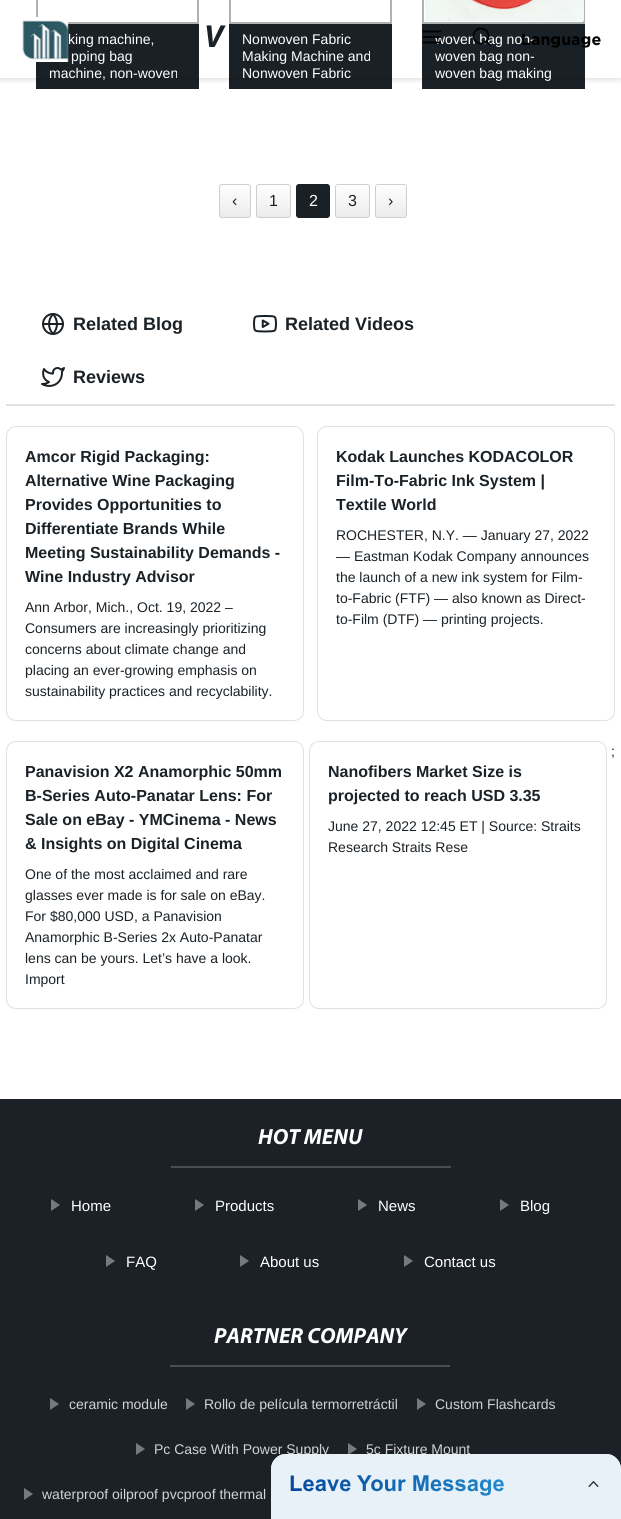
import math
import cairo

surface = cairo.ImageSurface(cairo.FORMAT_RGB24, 621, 1519)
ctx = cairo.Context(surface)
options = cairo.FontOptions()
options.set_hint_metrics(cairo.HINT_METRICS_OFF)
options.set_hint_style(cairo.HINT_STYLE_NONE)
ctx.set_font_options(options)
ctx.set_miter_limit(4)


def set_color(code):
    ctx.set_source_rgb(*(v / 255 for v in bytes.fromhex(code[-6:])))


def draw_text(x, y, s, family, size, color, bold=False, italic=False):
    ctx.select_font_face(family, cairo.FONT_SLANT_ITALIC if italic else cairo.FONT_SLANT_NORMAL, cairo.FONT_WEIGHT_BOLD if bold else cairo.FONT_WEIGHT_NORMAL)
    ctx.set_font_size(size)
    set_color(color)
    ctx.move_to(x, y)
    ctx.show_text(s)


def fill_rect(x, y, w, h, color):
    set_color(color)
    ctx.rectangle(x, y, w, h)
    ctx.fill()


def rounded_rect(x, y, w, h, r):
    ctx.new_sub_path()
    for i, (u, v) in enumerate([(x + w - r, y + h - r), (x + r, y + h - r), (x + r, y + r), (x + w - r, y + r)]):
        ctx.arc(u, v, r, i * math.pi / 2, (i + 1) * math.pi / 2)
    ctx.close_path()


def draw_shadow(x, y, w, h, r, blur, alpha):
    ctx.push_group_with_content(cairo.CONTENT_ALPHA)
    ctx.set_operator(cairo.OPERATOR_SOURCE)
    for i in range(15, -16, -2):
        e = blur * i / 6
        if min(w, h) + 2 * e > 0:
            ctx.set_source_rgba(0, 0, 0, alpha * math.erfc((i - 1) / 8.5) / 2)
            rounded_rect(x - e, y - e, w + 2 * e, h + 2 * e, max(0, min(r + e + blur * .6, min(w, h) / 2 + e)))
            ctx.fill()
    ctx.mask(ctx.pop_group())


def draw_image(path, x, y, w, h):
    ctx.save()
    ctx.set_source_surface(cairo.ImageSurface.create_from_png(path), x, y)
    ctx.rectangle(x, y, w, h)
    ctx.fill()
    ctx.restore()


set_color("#ffffff")
ctx.paint()
ctx.rectangle(37, -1, 161, 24)
set_color("#afb2b3")
ctx.stroke()
fill_rect(36, 24, 163, 65, "#1a2126")
ctx.rectangle(230, -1, 161, 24)
set_color("#afb2b3")
ctx.stroke()
fill_rect(229, 24, 163, 65, "#1a2126")
ctx.rectangle(423, -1, 161, 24)
set_color("#afb2b3")
ctx.stroke()
draw_image("assets/img3.png", 425, 0, 159, 21)
fill_rect(422, 24, 163, 65, "#1a2126")
ctx.save()
ctx.rectangle(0, 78, 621, 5)
ctx.clip()
set_color("#000000")
draw_shadow(0, 0, 621, 78, 0, 4, 0.2)
ctx.restore()
draw_text(68, 44, "king machine,", "Liberation Sans", 14, "#ffffff")
draw_image("assets/img1.png", 22, 17, 47, 45)
draw_text(204, 47, "V", "Myriad", 32, "#1b2227", bold=True, italic=True)
draw_text(435, 44, "woven bag non-", "Liberation Sans", 14, "#ffffff")
draw_image("assets/img2.png", 423, 30, 19, 14)
ctx.arc(481, 36, 7.5, 0, 2 * math.pi)
set_color("#000000")
ctx.set_line_width(1.8)
ctx.stroke()
ctx.new_path()
ctx.move_to(490, 45)
ctx.line_to(486.5, 41.5)
ctx.set_line_cap(cairo.LINE_CAP_ROUND)
ctx.set_line_join(cairo.LINE_JOIN_ROUND)
ctx.stroke()
draw_text(521, 45, "Language", "Gotham", 16, "#000000", bold=True)
draw_text(71, 61, "pping bag", "Liberation Sans", 14, "#ffffff")
draw_text(49, 78, "machine, non-woven", "Liberation Sans", 14, "#ffffff")
draw_text(242, 44, "Nonwoven Fabric", "Liberation Sans", 14, "#ffffff")
draw_text(242, 61, "Making Machine and", "Liberation Sans", 14, "#ffffff")
draw_text(242, 78, "Nonwoven Fabric", "Liberation Sans", 14, "#ffffff")
draw_text(435, 61, "woven bag non-", "Liberation Sans", 14, "#ffffff")
draw_text(435, 78, "woven bag making", "Liberation Sans", 14, "#ffffff")
ctx.save()
rounded_rect(219, 184, 32, 34, 3)
ctx.clip()
gradient = cairo.LinearGradient(220, 185, 220, 217)
gradient.add_color_stop_rgba(0, 0.996, 0.996, 0.996, 1)
gradient.add_color_stop_rgba(1, 0.925, 0.925, 0.925, 1)
ctx.set_source(gradient)
ctx.rectangle(219, 185, 32, 32)
ctx.fill()
ctx.restore()
rounded_rect(219.5, 184.5, 31, 33, 2.5)
set_color("#cfcfcf")
ctx.set_line_width(1)
ctx.set_line_cap(cairo.LINE_CAP_BUTT)
ctx.set_line_join(cairo.LINE_JOIN_MITER)
ctx.stroke()
draw_text(232, 206, "‹", "Liberation Sans", 16, "#1b2227")
ctx.save()
rounded_rect(256, 184, 35, 34, 3)
ctx.clip()
gradient = cairo.LinearGradient(257, 185, 257, 217)
gradient.add_color_stop_rgba(0, 0.996, 0.996, 0.996, 1)
gradient.add_color_stop_rgba(1, 0.925, 0.925, 0.925, 1)
ctx.set_source(gradient)
ctx.rectangle(256, 185, 35, 32)
ctx.fill()
ctx.restore()
rounded_rect(256.5, 184.5, 34, 33, 2.5)
set_color("#cfcfcf")
ctx.stroke()
draw_text(269, 206, "1", "Liberation Sans", 16, "#1b2227")
set_color("#1a2126")
rounded_rect(296.5, 184.5, 33, 33, 2.5)
ctx.fill_preserve()
ctx.stroke()
draw_text(309, 206, "2", "Liberation Sans", 16, "#ffffff")
ctx.save()
rounded_rect(335, 184, 35, 34, 3)
ctx.clip()
gradient = cairo.LinearGradient(336, 185, 336, 217)
gradient.add_color_stop_rgba(0, 0.996, 0.996, 0.996, 1)
gradient.add_color_stop_rgba(1, 0.925, 0.925, 0.925, 1)
ctx.set_source(gradient)
ctx.rectangle(335, 185, 35, 32)
ctx.fill()
ctx.restore()
rounded_rect(335.5, 184.5, 34, 33, 2.5)
set_color("#cfcfcf")
ctx.stroke()
draw_text(348, 206, "3", "Liberation Sans", 16, "#1b2227")
ctx.save()
rounded_rect(375, 184, 32, 34, 3)
ctx.clip()
gradient = cairo.LinearGradient(376, 185, 376, 217)
gradient.add_color_stop_rgba(0, 0.996, 0.996, 0.996, 1)
gradient.add_color_stop_rgba(1, 0.925, 0.925, 0.925, 1)
ctx.set_source(gradient)
ctx.rectangle(375, 185, 32, 32)
ctx.fill()
ctx.restore()
rounded_rect(375.5, 184.5, 31, 33, 2.5)
set_color("#cfcfcf")
ctx.stroke()
draw_text(388, 206, "›", "Liberation Sans", 16, "#1b2227")
draw_image("assets/img4.png", 42, 313, 22, 22)
draw_text(73, 330, "Related Blog", "Liberation Sans", 18, "#1b2227", bold=True)
draw_image("assets/img5.png", 253, 315, 24, 18)
draw_text(285, 330, "Related Videos", "Liberation Sans", 18, "#1b2227", bold=True)
draw_image("assets/img6.png", 41, 367, 24, 20)
draw_text(73, 383, "Reviews", "Liberation Sans", 18, "#1b2227", bold=True)
fill_rect(6, 404, 609, 2, "#e0e1e5")
rounded_rect(6.5, 426.5, 297, 294, 9.5)
ctx.stroke()
draw_text(25, 462, "Amcor Rigid Packaging:", "Liberation Sans", 16, "#1b2227", bold=True)
draw_text(25, 486, "Alternative Wine Packaging", "Liberation Sans", 16, "#1b2227", bold=True)
draw_text(25, 510, "Provides Opportunities to", "Liberation Sans", 16, "#1b2227", bold=True)
draw_text(25, 534, "Differentiate Brands While", "Liberation Sans", 16, "#1b2227", bold=True)
draw_text(25, 558, "Meeting Sustainability Demands -", "Liberation Sans", 16, "#1b2227", bold=True)
draw_text(25, 582, "Wine Industry Advisor", "Liberation Sans", 16, "#1b2227", bold=True)
draw_text(25, 612, "Ann Arbor, Mich., Oct. 19, 2022 –", "Liberation Sans", 14, "#1b2227")
draw_text(25, 633, "Consumers are increasingly prioritizing", "Liberation Sans", 14, "#1b2227")
draw_text(25, 654, "concerns about climate change and", "Liberation Sans", 14, "#1b2227")
draw_text(25, 675, "placing an ever-growing emphasis on", "Liberation Sans", 14, "#1b2227")
draw_text(25, 696, "sustainability practices and recyclability.", "Liberation Sans", 14, "#1b2227")
rounded_rect(317.5, 426.5, 297, 294, 9.5)
set_color("#e0e1e5")
ctx.stroke()
draw_text(336, 462, "Kodak Launches KODACOLOR", "Liberation Sans", 16, "#1b2227", bold=True)
draw_text(336, 486, "Film-To-Fabric Ink System |", "Liberation Sans", 16, "#1b2227", bold=True)
draw_text(336, 510, "Textile World", "Liberation Sans", 16, "#1b2227", bold=True)
draw_text(336, 540, "ROCHESTER, N.Y. — January 27, 2022", "Liberation Sans", 14, "#1b2227")
draw_text(336, 561, "— Eastman Kodak Company announces", "Liberation Sans", 14, "#1b2227")
draw_text(336, 582, "the launch of a new ink system for Film-", "Liberation Sans", 14, "#1b2227")
draw_text(336, 603, "to-Fabric (FTF) — also known as Direct-", "Liberation Sans", 14, "#1b2227")
draw_text(336, 624, "to-Film (DTF) — printing projects.", "Liberation Sans", 14, "#1b2227")
draw_text(611, 756, ";", "Liberation Sans", 14, "#1b2227")
rounded_rect(6.5, 741.5, 297, 267, 9.5)
set_color("#e0e1e5")
ctx.stroke()
draw_text(25, 777, "Panavision X2 Anamorphic 50mm", "Liberation Sans", 16, "#1b2227", bold=True)
draw_text(25, 801, "B-Series Auto-Panatar Lens: For", "Liberation Sans", 16, "#1b2227", bold=True)
draw_text(25, 825, "Sale on eBay - YMCinema - News", "Liberation Sans", 16, "#1b2227", bold=True)
draw_text(25, 849, "& Insights on Digital Cinema", "Liberation Sans", 16, "#1b2227", bold=True)
draw_text(25, 879, "One of the most acclaimed and rare", "Liberation Sans", 14, "#1b2227")
draw_text(25, 900, "glasses ever made is for sale on eBay.", "Liberation Sans", 14, "#1b2227")
draw_text(25, 921, "For $80,000 USD, a Panavision", "Liberation Sans", 14, "#1b2227")
draw_text(25, 942, "Anamorphic B-Series 2x Auto-Panatar", "Liberation Sans", 14, "#1b2227")
draw_text(25, 963, "lens can be yours. Let’s have a look.", "Liberation Sans", 14, "#1b2227")
draw_text(25, 984, "Import", "Liberation Sans", 14, "#1b2227")
rounded_rect(309.5, 741.5, 297, 267, 9.5)
set_color("#e0e1e5")
ctx.stroke()
draw_text(328, 777, "Nanofibers Market Size is", "Liberation Sans", 16, "#1b2227", bold=True)
draw_text(328, 801, "projected to reach USD 3.35", "Liberation Sans", 16, "#1b2227", bold=True)
draw_text(328, 831, "June 27, 2022 12:45 ET | Source: Straits", "Liberation Sans", 14, "#1b2227")
draw_text(328, 852, "Research Straits Rese", "Liberation Sans", 14, "#1b2227")
fill_rect(0, 1099, 621, 420, "#1b2127")
draw_text(258, 1144, "HOT MENU", "Myriad", 22, "#ffffff", bold=True, italic=True)
fill_rect(171, 1166, 280, 2, "#494d52")
set_color("#767a7d")
ctx.new_path()
ctx.move_to(51, 1211)
ctx.line_to(51, 1199)
ctx.line_to(60, 1205)
ctx.close_path()
ctx.fill()
draw_text(71, 1211, "Home", "Liberation Sans", 15, "#ffffff")
set_color("#767a7d")
ctx.new_path()
ctx.move_to(195, 1211)
ctx.line_to(195, 1199)
ctx.line_to(204, 1205)
ctx.close_path()
ctx.fill()
draw_text(215, 1211, "Products", "Liberation Sans", 15, "#ffffff")
set_color("#767a7d")
ctx.new_path()
ctx.move_to(358, 1211)
ctx.line_to(358, 1199)
ctx.line_to(367, 1205)
ctx.close_path()
ctx.fill()
draw_text(378, 1211, "News", "Liberation Sans", 15, "#ffffff")
set_color("#767a7d")
ctx.new_path()
ctx.move_to(500, 1211)
ctx.line_to(500, 1199)
ctx.line_to(509, 1205)
ctx.close_path()
ctx.fill()
draw_text(520, 1211, "Blog", "Liberation Sans", 15, "#ffffff")
set_color("#767a7d")
ctx.new_path()
ctx.move_to(106, 1267)
ctx.line_to(106, 1255)
ctx.line_to(115, 1261)
ctx.close_path()
ctx.fill()
draw_text(126, 1267, "FAQ", "Liberation Sans", 15, "#ffffff")
set_color("#767a7d")
ctx.new_path()
ctx.move_to(240, 1267)
ctx.line_to(240, 1255)
ctx.line_to(249, 1261)
ctx.close_path()
ctx.fill()
draw_text(260, 1267, "About us", "Liberation Sans", 15, "#ffffff")
set_color("#767a7d")
ctx.new_path()
ctx.move_to(404, 1267)
ctx.line_to(404, 1255)
ctx.line_to(413, 1261)
ctx.close_path()
ctx.fill()
draw_text(424, 1267, "Contact us", "Liberation Sans", 15, "#ffffff")
draw_text(214, 1343, "PARTNER COMPANY", "Myriad", 22, "#ffffff", bold=True, italic=True)
fill_rect(170, 1365, 280, 2, "#494d52")
set_color("#767a7d")
ctx.new_path()
ctx.move_to(50, 1410)
ctx.line_to(50, 1398)
ctx.line_to(59, 1404)
ctx.close_path()
ctx.fill()
draw_text(69, 1409, "ceramic module", "Liberation Sans", 14, "#d1d3d4")
set_color("#767a7d")
ctx.new_path()
ctx.move_to(186, 1410)
ctx.line_to(186, 1398)
ctx.line_to(195, 1404)
ctx.close_path()
ctx.fill()
draw_text(204, 1409, "Rollo de película termorretráctil", "Liberation Sans", 14, "#d1d3d4")
set_color("#767a7d")
ctx.new_path()
ctx.move_to(417, 1410)
ctx.line_to(417, 1398)
ctx.line_to(426, 1404)
ctx.close_path()
ctx.fill()
draw_text(435, 1409, "Custom Flashcards", "Liberation Sans", 14, "#d1d3d4")
set_color("#767a7d")
ctx.new_path()
ctx.move_to(136, 1455)
ctx.line_to(136, 1443)
ctx.line_to(145, 1449)
ctx.close_path()
ctx.fill()
draw_text(154, 1454, "Pc Case With Power Supply", "Liberation Sans", 14, "#d1d3d4")
set_color("#767a7d")
ctx.new_path()
ctx.move_to(348, 1455)
ctx.line_to(348, 1443)
ctx.line_to(357, 1449)
ctx.close_path()
ctx.fill()
draw_text(366, 1454, "5c Fixture Mount", "Liberation Sans", 14, "#d1d3d4")
set_color("#767a7d")
ctx.new_path()
ctx.move_to(24, 1500)
ctx.line_to(24, 1488)
ctx.line_to(33, 1494)
ctx.close_path()
ctx.fill()
draw_text(42, 1499, "waterproof oilproof pvcproof thermal", "Liberation Sans", 14, "#d1d3d4")
draw_image("assets/img7.png", 271, 1454, 350, 65)
surface.write_to_png("output.png")
